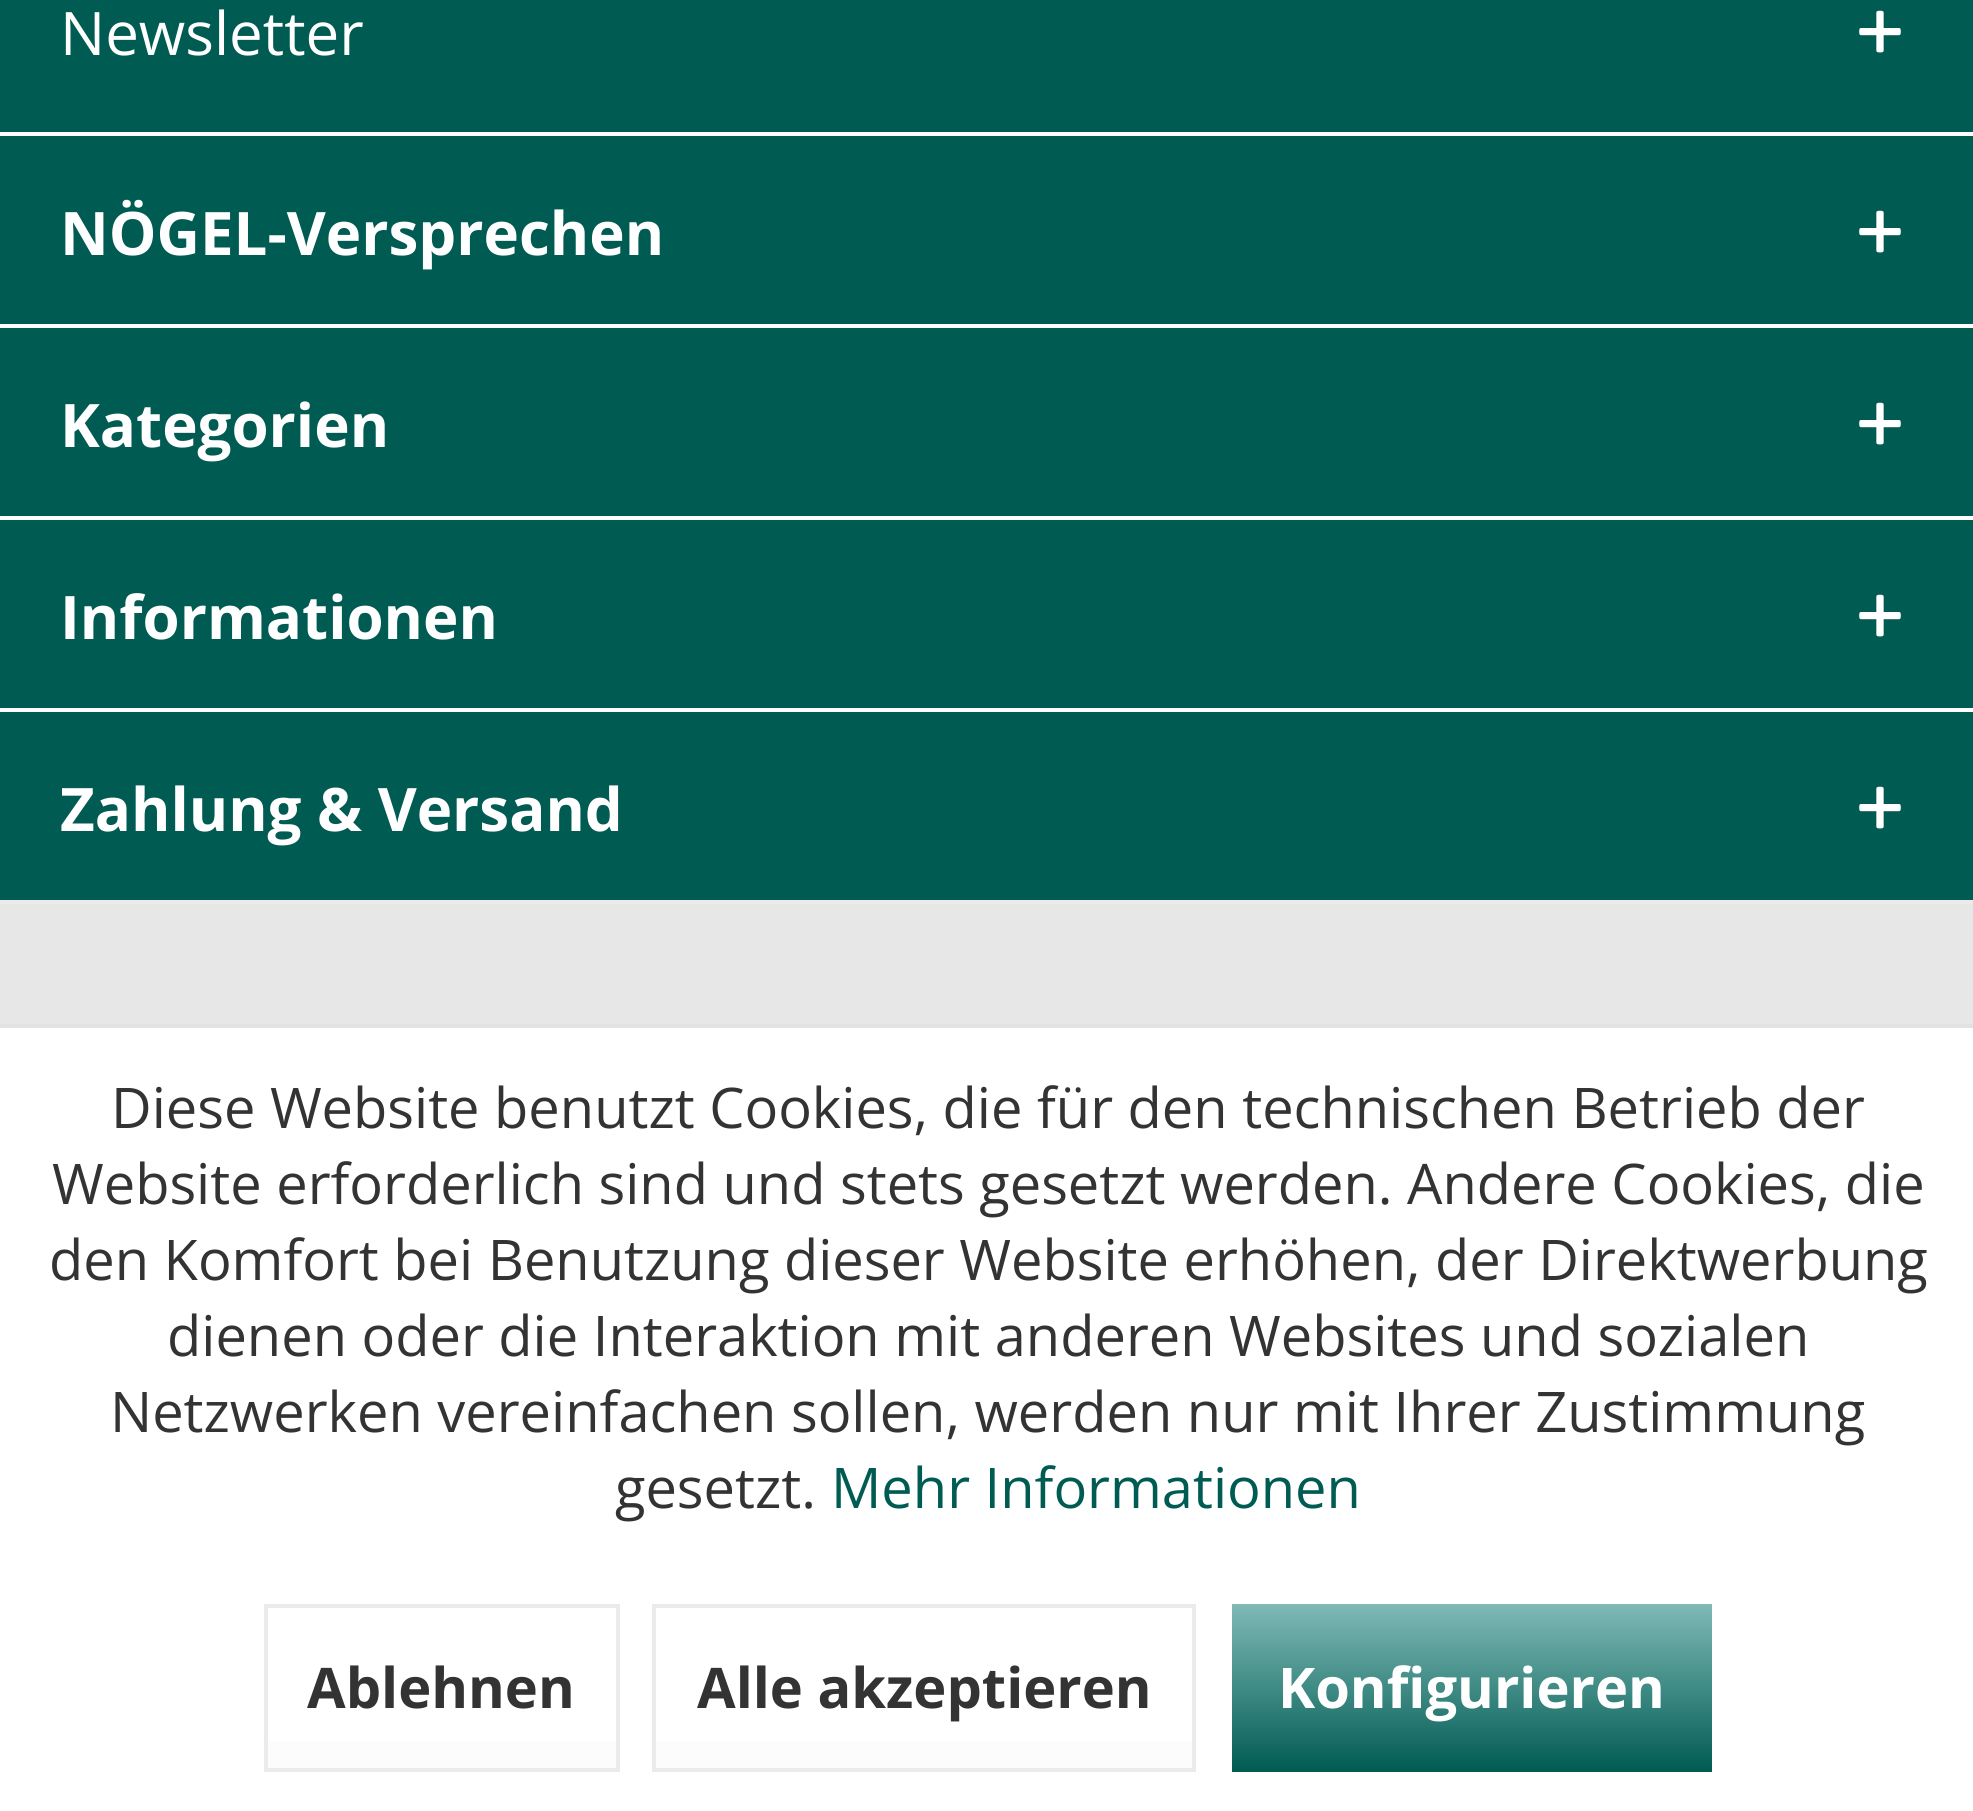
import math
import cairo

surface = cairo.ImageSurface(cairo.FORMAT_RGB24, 1973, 1811)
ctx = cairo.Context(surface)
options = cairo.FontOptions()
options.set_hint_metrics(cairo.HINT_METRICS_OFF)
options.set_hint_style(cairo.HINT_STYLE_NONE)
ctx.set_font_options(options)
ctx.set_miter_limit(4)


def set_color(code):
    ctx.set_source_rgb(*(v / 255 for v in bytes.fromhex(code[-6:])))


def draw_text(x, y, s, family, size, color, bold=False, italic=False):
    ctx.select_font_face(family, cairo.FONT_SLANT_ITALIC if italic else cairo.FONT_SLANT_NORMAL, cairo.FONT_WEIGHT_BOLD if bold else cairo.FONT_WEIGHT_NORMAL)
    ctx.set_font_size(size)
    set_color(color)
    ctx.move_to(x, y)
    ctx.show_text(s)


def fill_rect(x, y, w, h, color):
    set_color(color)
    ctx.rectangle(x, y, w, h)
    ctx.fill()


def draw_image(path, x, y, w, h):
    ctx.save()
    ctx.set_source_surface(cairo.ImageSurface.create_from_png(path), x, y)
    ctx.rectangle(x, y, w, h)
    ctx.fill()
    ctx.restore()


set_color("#e7e7e7")
ctx.paint()
fill_rect(0, 0, 1973, 132, "#005b53")
draw_text(60, 55, "Newsletter", "Open Sans", 60, "#ffffff")
draw_image("assets/img1.png", 1859, 10, 42, 43)
fill_rect(0, 136, 1973, 188, "#005b53")
fill_rect(0, 132, 1973, 4, "#ffffff")
draw_text(60, 255, "NÖGEL-Versprechen", "Open Sans", 60, "#ffffff", bold=True)
draw_image("assets/img1.png", 1859, 210, 42, 43)
fill_rect(0, 328, 1973, 188, "#005b53")
fill_rect(0, 324, 1973, 4, "#ffffff")
draw_text(60, 447, "Kategorien", "Open Sans", 60, "#ffffff", bold=True)
draw_image("assets/img1.png", 1859, 402, 42, 43)
fill_rect(0, 520, 1973, 188, "#005b53")
fill_rect(0, 516, 1973, 4, "#ffffff")
draw_text(60, 639, "Informationen", "Open Sans", 60, "#ffffff", bold=True)
draw_image("assets/img1.png", 1859, 594, 42, 43)
fill_rect(0, 712, 1973, 188, "#005b53")
fill_rect(0, 708, 1973, 4, "#ffffff")
draw_text(60, 831, "Zahlung & Versand", "Open Sans", 60, "#ffffff", bold=True)
draw_image("assets/img1.png", 1859, 786, 42, 43)
fill_rect(0, 900, 1973, 4, "#ebebeb")
fill_rect(0, 1028, 1973, 783, "#ffffff")
fill_rect(0, 1024, 1973, 4, "#e2e2e2")
draw_text(111, 1128, "Diese Website benutzt Cookies, die für den technischen Betrieb der", "Open Sans", 56, "#333333")
draw_text(52, 1204, "Website erforderlich sind und stets gesetzt werden. Andere Cookies, die", "Open Sans", 56, "#333333")
draw_text(49, 1280, "den Komfort bei Benutzung dieser Website erhöhen, der Direktwerbung", "Open Sans", 56, "#333333")
draw_text(167, 1356, "dienen oder die Interaktion mit anderen Websites und sozialen", "Open Sans", 56, "#333333")
draw_text(110, 1432, "Netzwerken vereinfachen sollen, werden nur mit Ihrer Zustimmung", "Open Sans", 56, "#333333")
draw_text(615, 1508, "gesetzt.", "Open Sans", 56, "#333333")
draw_text(831, 1508, "Mehr Informationen", "Open Sans", 56, "#005b53")
gradient = cairo.LinearGradient(442, 1608, 442, 1768)
gradient.add_color_stop_rgba(0, 1, 1, 1, 1)
gradient.add_color_stop_rgba(1, 0.988, 0.988, 0.988, 1)
ctx.set_source(gradient)
ctx.rectangle(268, 1741, 348, 27)
ctx.fill()
ctx.rectangle(266, 1606, 352, 164)
set_color("#ebebeb")
ctx.set_line_width(4)
ctx.stroke()
draw_text(307, 1708, "Ablehnen", "Open Sans", 56, "#333333", bold=True)
gradient = cairo.LinearGradient(924, 1608, 924, 1768)
gradient.add_color_stop_rgba(0, 1, 1, 1, 1)
gradient.add_color_stop_rgba(1, 0.988, 0.988, 0.988, 1)
ctx.set_source(gradient)
ctx.rectangle(656, 1741, 536, 27)
ctx.fill()
ctx.rectangle(654, 1606, 540, 164)
set_color("#ebebeb")
ctx.stroke()
draw_text(697, 1708, "Alle akzeptieren", "Open Sans", 56, "#333333", bold=True)
gradient = cairo.LinearGradient(1472, 1604, 1472, 1772)
gradient.add_color_stop_rgba(0, 0.498, 0.729, 0.714, 1)
gradient.add_color_stop_rgba(1, 0, 0.357, 0.325, 1)
ctx.set_source(gradient)
ctx.rectangle(1232, 1604, 480, 168)
ctx.fill()
draw_text(1278, 1708, "Konfigurieren", "Open Sans", 56, "#ffffff", bold=True)
surface.write_to_png("output.png")
